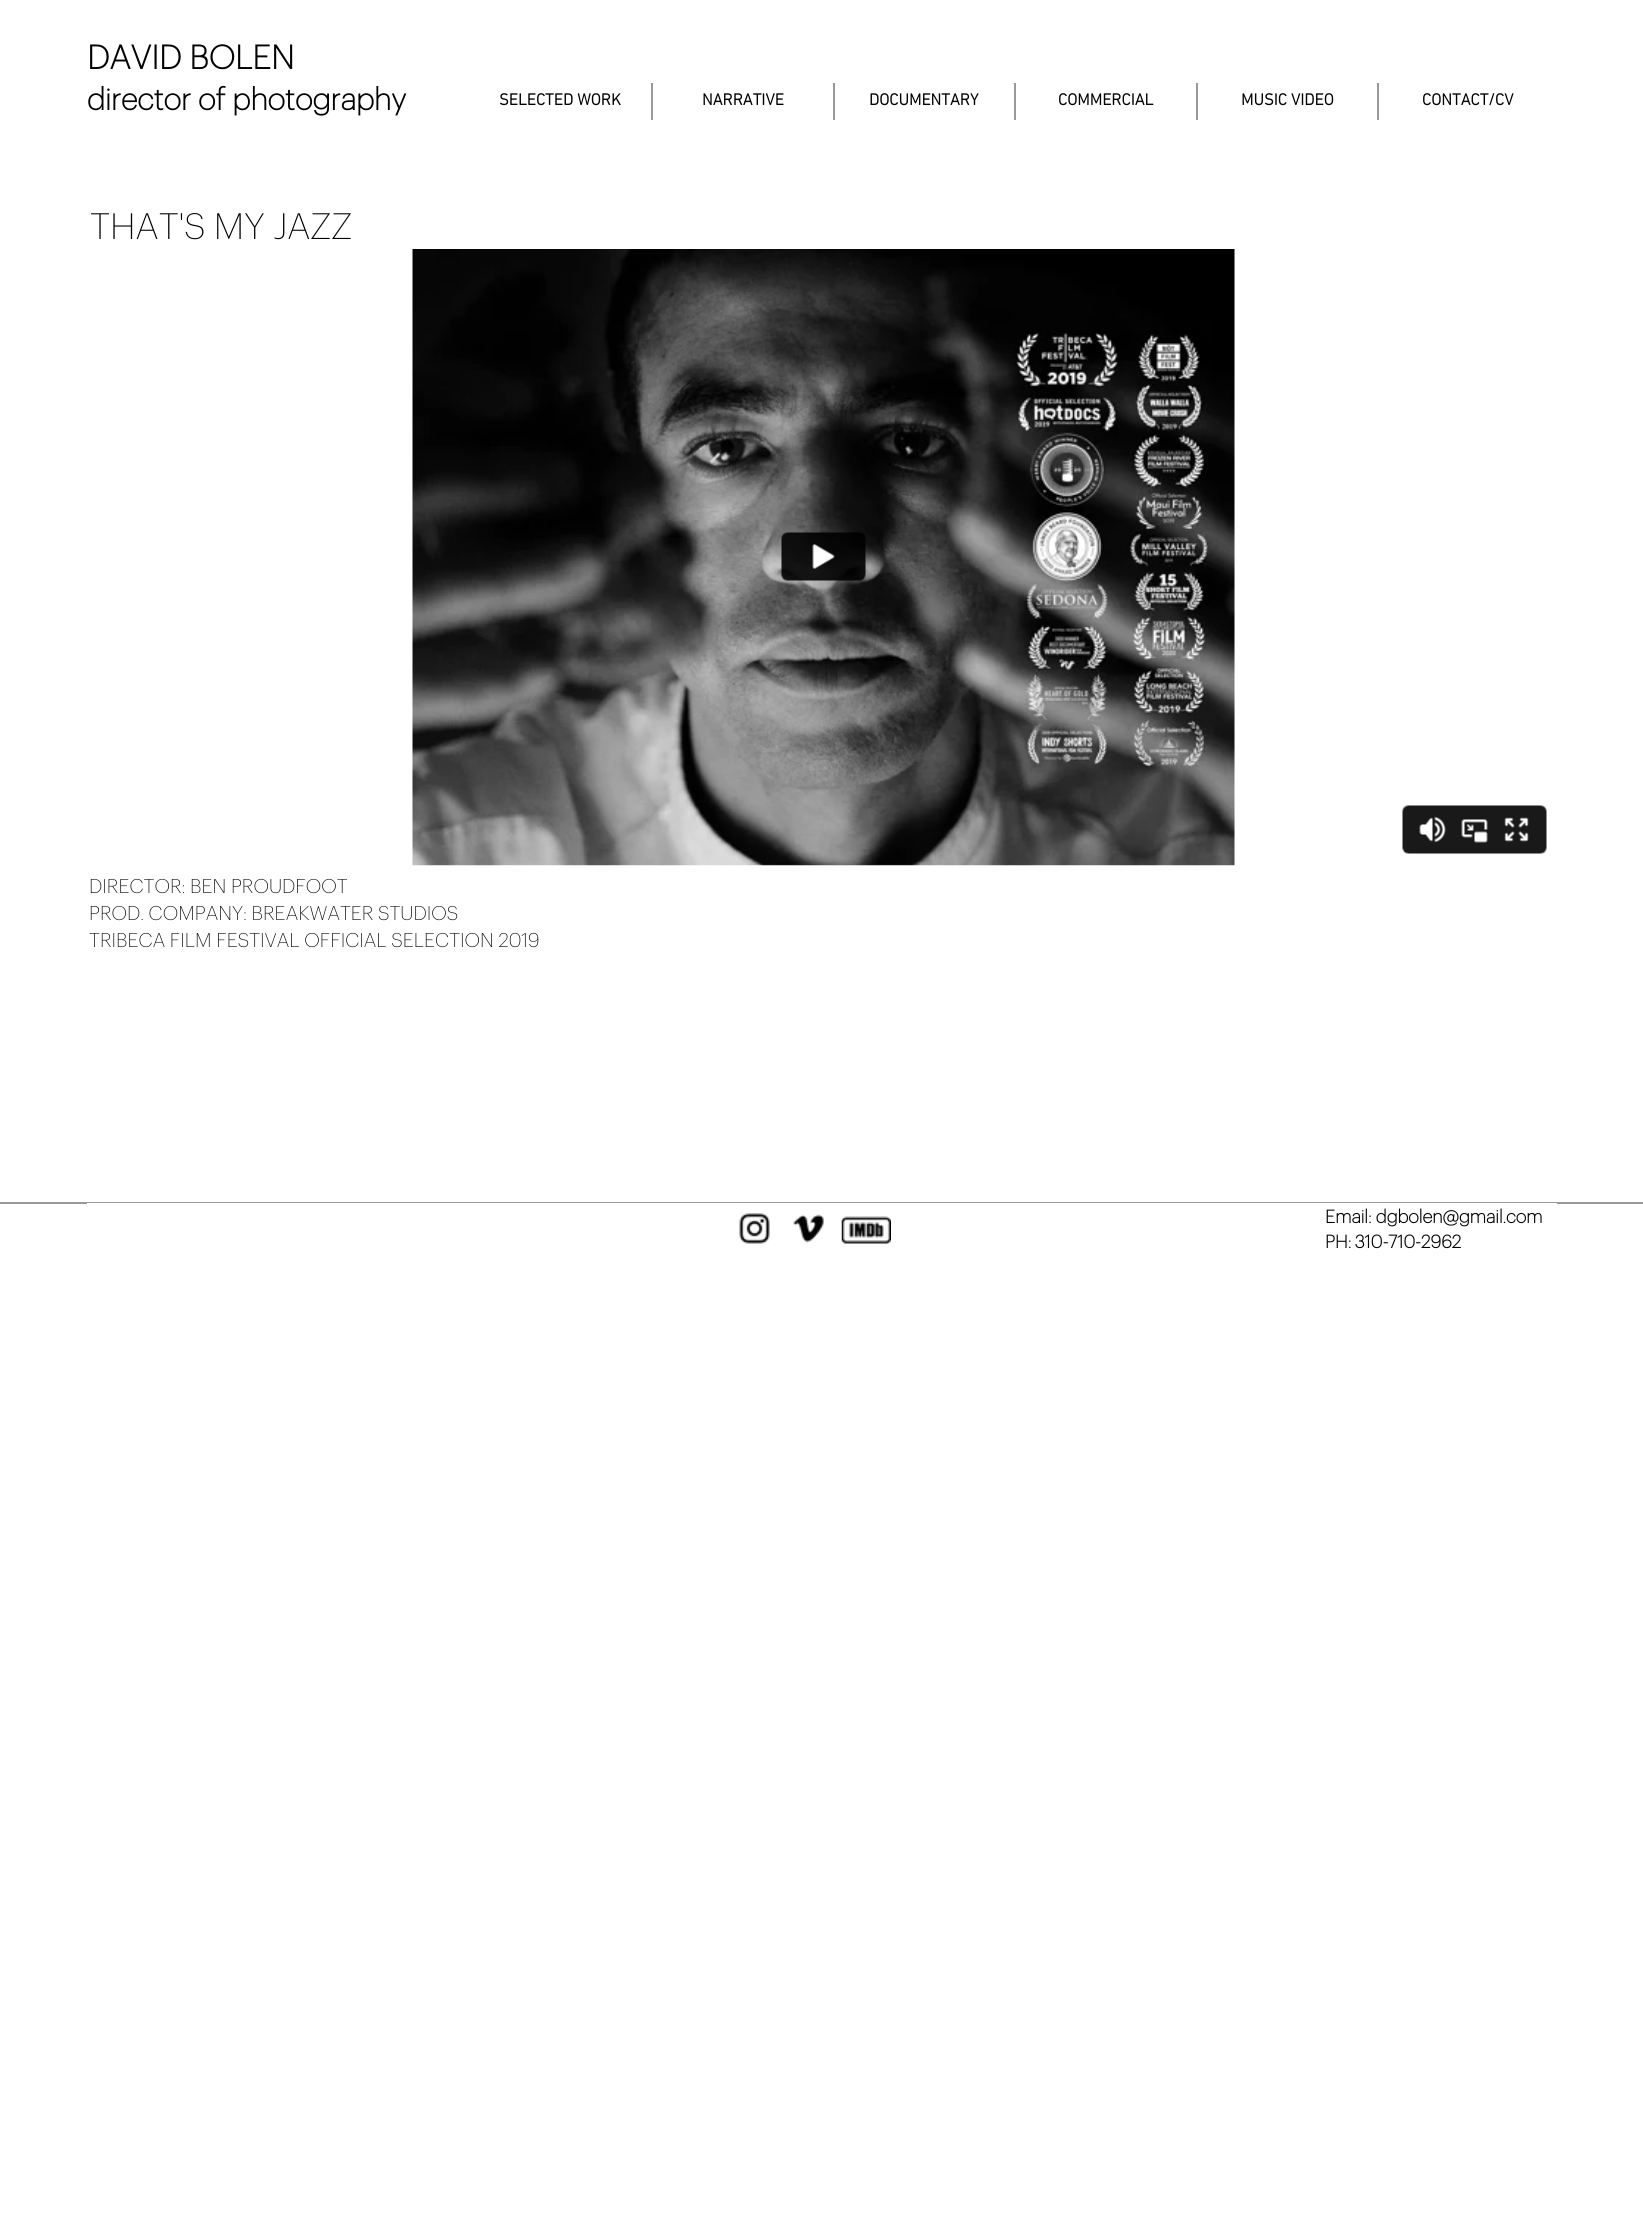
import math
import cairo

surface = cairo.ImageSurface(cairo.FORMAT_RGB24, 1643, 2215)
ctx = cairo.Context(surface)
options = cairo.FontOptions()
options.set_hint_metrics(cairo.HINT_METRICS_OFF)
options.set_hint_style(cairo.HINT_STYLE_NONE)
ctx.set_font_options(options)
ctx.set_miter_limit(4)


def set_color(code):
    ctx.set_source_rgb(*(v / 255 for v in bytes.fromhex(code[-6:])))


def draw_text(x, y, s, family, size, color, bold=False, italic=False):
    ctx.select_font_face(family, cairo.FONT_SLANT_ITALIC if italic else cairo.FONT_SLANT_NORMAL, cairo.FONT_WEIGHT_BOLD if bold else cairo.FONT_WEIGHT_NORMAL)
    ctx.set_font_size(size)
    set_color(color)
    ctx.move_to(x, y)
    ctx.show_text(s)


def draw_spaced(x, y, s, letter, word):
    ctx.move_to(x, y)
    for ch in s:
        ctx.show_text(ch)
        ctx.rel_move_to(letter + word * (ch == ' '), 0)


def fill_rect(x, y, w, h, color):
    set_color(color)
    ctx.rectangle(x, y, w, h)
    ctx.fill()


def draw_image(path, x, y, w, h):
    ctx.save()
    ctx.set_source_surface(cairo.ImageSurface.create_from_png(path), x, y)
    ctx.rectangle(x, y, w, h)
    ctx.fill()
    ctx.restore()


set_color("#ffffff")
ctx.paint()
draw_text(87, 69, "DAVID BOLEN", "Graphik", 33, "#000000", bold=True)
draw_text(87, 110, "director of photography", "Graphik", 30, "#000000", bold=True)
draw_text(499, 105, "SELECTED WORK", "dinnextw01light", 16.5, "#000000", bold=True)
fill_rect(651, 83, 2, 37, "#999999")
draw_text(702, 105, "NARRATIVE", "dinnextw01light", 16.5, "#000000", bold=True)
fill_rect(833, 83, 2, 37, "#999999")
draw_text(869, 105, "DOCUMENTARY", "dinnextw01light", 16.5, "#000000", bold=True)
fill_rect(1014, 83, 2, 37, "#999999")
draw_text(1058, 105, "COMMERCIAL", "dinnextw01light", 16.5, "#000000", bold=True)
fill_rect(1196, 83, 2, 37, "#999999")
draw_text(1241, 105, "MUSIC VIDEO", "dinnextw01light", 16.5, "#000000", bold=True)
fill_rect(1377, 83, 2, 37, "#999999")
draw_text(1422, 105, "CONTACT/CV", "dinnextw01light", 16.5, "#000000", bold=True)
draw_text(90, 239, "THAT'S MY JAZZ", "Graphik ExtraLight", 36, "#000000")
draw_image("assets/img1.png", 412, 249, 1135, 617)
draw_text(89, 893, "DIRECTOR: BEN PROUDFOOT", "Graphik ExtraLight", 19.5, "#000000")
draw_text(89, 920, "PROD. COMPANY: BREAKWATER STUDIOS", "Graphik ExtraLight", 19.5, "#000000")
draw_text(89, 947, "TRIBECA FILM FESTIVAL OFFICIAL SELECTION 2019", "Graphik ExtraLight", 19.5, "#000000")
fill_rect(0, 1202, 1643, 2, "#999999")
fill_rect(87, 1203, 1470, 1, "#ffffff")
draw_image("assets/img2.png", 739, 1213, 31, 31)
draw_image("assets/img3.png", 793, 1214, 31, 29)
draw_image("assets/img4.png", 841, 1216, 50, 28)
draw_text(1325, 1223, "Email: dgbolen@gmail.com", "Graphik", 18, "#000000", bold=True)
draw_spaced(1325, 1248, "PH: 310-710-2962", 0, -1)
surface.write_to_png("output.png")
